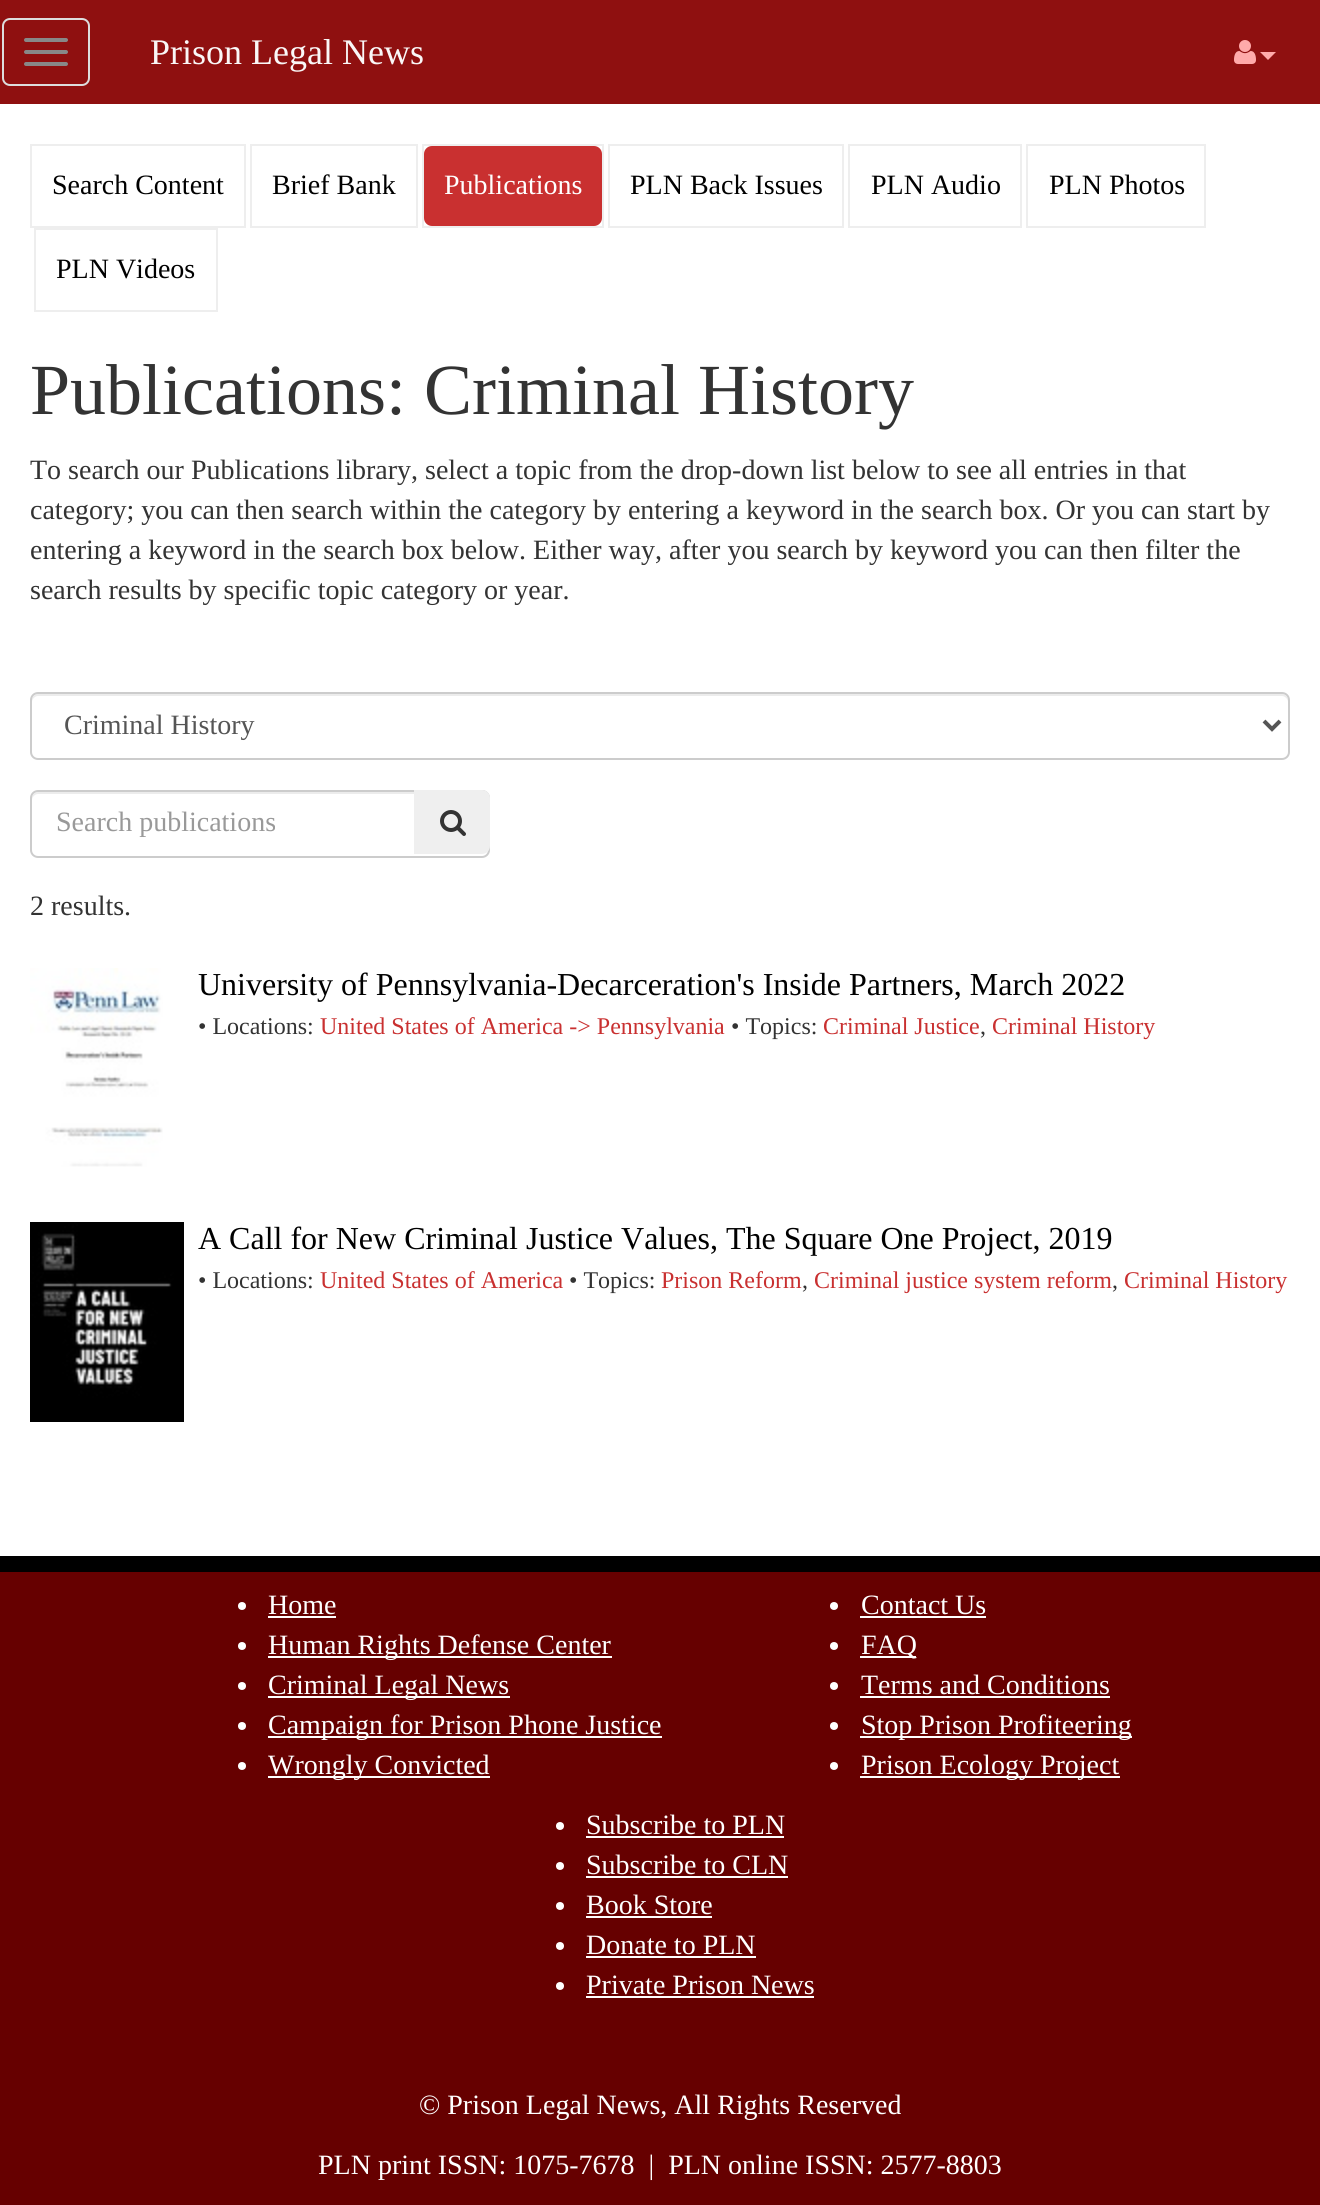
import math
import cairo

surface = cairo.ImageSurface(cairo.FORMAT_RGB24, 1320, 2205)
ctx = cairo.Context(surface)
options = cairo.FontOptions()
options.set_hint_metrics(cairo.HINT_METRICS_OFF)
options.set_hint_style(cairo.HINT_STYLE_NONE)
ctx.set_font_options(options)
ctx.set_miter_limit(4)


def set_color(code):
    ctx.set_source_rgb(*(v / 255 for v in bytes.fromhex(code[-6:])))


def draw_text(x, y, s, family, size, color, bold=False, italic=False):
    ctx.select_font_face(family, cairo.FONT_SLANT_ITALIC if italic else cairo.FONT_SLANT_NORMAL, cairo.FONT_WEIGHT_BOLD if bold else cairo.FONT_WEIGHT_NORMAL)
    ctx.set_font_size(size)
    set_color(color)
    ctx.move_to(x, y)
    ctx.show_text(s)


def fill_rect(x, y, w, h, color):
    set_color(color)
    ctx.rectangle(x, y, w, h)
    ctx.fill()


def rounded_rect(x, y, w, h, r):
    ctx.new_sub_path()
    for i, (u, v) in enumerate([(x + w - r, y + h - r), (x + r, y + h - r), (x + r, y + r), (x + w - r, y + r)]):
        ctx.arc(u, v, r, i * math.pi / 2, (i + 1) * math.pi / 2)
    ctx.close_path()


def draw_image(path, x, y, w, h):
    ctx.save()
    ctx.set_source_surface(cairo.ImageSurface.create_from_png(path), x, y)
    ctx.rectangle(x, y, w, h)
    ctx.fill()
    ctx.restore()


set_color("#ffffff")
ctx.paint()
fill_rect(0, 0, 1320, 104, "#8f1010")
rounded_rect(3, 19, 86, 66, 7)
set_color("#dddddd")
ctx.stroke()
set_color("#888888")
rounded_rect(24, 38, 44, 4, 2)
ctx.fill()
rounded_rect(24, 50, 44, 4, 2)
ctx.fill()
rounded_rect(24, 62, 44, 4, 2)
ctx.fill()
draw_text(150, 64, "Prison Legal News", "Liberation Serif", 36, "#faf7f7")
draw_image("assets/img1.png", 1234, 40, 22, 24)
set_color("#ffaaaa")
ctx.new_path()
ctx.move_to(1260, 52)
ctx.line_to(1276, 52)
ctx.line_to(1268, 60)
ctx.close_path()
ctx.fill()
ctx.rectangle(31, 145, 214, 82)
set_color("#eeeeee")
ctx.stroke()
draw_text(52, 194, "Search Content", "Liberation Serif", 28, "#000000")
ctx.rectangle(251, 145, 166, 82)
set_color("#eeeeee")
ctx.stroke()
draw_text(272, 194, "Brief Bank", "Liberation Serif", 28, "#000000")
ctx.rectangle(423, 145, 180, 82)
set_color("#eeeeee")
ctx.stroke()
set_color("#c93030")
rounded_rect(424, 146, 178, 80, 8)
ctx.fill()
draw_text(444, 194, "Publications", "Liberation Serif", 28, "#ffffff")
ctx.rectangle(609, 145, 234, 82)
set_color("#eeeeee")
ctx.stroke()
draw_text(630, 194, "PLN Back Issues", "Liberation Serif", 28, "#000000")
ctx.rectangle(849, 145, 172, 82)
set_color("#eeeeee")
ctx.stroke()
draw_text(871, 194, "PLN Audio", "Liberation Serif", 28, "#000000")
ctx.rectangle(1027, 145, 178, 82)
set_color("#eeeeee")
ctx.stroke()
draw_text(1049, 194, "PLN Photos", "Liberation Serif", 28, "#000000")
ctx.rectangle(35, 229, 182, 82)
set_color("#eeeeee")
ctx.stroke()
draw_text(56, 278, "PLN Videos", "Liberation Serif", 28, "#000000")
draw_text(30, 414, "Publications: Criminal History", "Liberation Serif", 72, "#333333")
draw_text(30, 479, "To search our Publications library, select a topic from the drop-down list below to see all entries in that", "Liberation Serif", 28, "#333333")
draw_text(30, 519, "category; you can then search within the category by entering a keyword in the search box. Or you can start by", "Liberation Serif", 28, "#333333")
draw_text(30, 559, "entering a keyword in the search box below. Either way, after you search by keyword you can then filter the", "Liberation Serif", 28, "#333333")
draw_text(30, 599, "search results by specific topic category or year.", "Liberation Serif", 28, "#333333")
set_color("#ececec")
ctx.new_path()
ctx.move_to(38, 696)
ctx.line_to(1282, 696)
ctx.curve_to(1285, 696, 1288, 699, 1288, 702)
ctx.line_to(1288, 700)
ctx.curve_to(1288, 697, 1285, 694, 1282, 694)
ctx.line_to(38, 694)
ctx.curve_to(35, 694, 32, 697, 32, 700)
ctx.line_to(32, 702)
ctx.curve_to(32, 699, 35, 696, 38, 696)
ctx.close_path()
ctx.fill()
rounded_rect(31, 693, 1258, 66, 7)
set_color("#cccccc")
ctx.stroke()
ctx.new_path()
ctx.move_to(1264, 721)
ctx.line_to(1272, 729)
ctx.line_to(1280, 721)
set_color("#555555")
ctx.set_line_width(4)
ctx.stroke()
draw_text(64, 734, "Criminal History", "Liberation Serif", 28, "#555555")
set_color("#ececec")
ctx.new_path()
ctx.move_to(38, 794)
ctx.line_to(482, 794)
ctx.curve_to(485, 794, 488, 797, 488, 800)
ctx.line_to(488, 798)
ctx.curve_to(488, 795, 485, 792, 482, 792)
ctx.line_to(38, 792)
ctx.curve_to(35, 792, 32, 795, 32, 798)
ctx.line_to(32, 800)
ctx.curve_to(32, 797, 35, 794, 38, 794)
ctx.close_path()
ctx.fill()
rounded_rect(31, 791, 458, 66, 7)
set_color("#cccccc")
ctx.set_line_width(2)
ctx.stroke()
draw_text(56, 831, "Search publications", "Liberation Serif", 28, "#999999")
set_color("#efefef")
ctx.new_path()
ctx.move_to(414, 790)
ctx.line_to(482, 790)
ctx.curve_to(486.5, 790, 490, 793.5, 490, 798)
ctx.line_to(490, 846)
ctx.curve_to(490, 850.5, 486.5, 854, 482, 854)
ctx.line_to(414, 854)
ctx.close_path()
ctx.fill()
draw_image("assets/img2.png", 440, 810, 26, 26)
draw_text(30, 915, "2 results.", "Liberation Serif", 28, "#333333")
draw_image("assets/img3.png", 30, 968, 133, 199)
draw_text(198, 995, "University of Pennsylvania-Decarceration's Inside Partners, March 2022", "Liberation Serif", 32, "#000000")
draw_text(198, 1034, "• Locations:", "Liberation Serif", 24, "#333333")
draw_text(320, 1034, "United States of America -> Pennsylvania", "Liberation Serif", 24, "#c93030")
draw_text(731, 1034, "• Topics:", "Liberation Serif", 24, "#333333")
draw_text(823, 1034, "Criminal Justice", "Liberation Serif", 24, "#c93030")
draw_text(980, 1034, ",", "Liberation Serif", 24, "#333333")
draw_text(992, 1034, "Criminal History", "Liberation Serif", 24, "#c93030")
draw_image("assets/img4.png", 30, 1222, 154, 200)
draw_text(198, 1249, "A Call for New Criminal Justice Values, The Square One Project, 2019", "Liberation Serif", 32, "#000000")
draw_text(198, 1288, "• Locations:", "Liberation Serif", 24, "#333333")
draw_text(320, 1288, "United States of America", "Liberation Serif", 24, "#c93030")
draw_text(569, 1288, "• Topics:", "Liberation Serif", 24, "#333333")
draw_text(661, 1288, "Prison Reform", "Liberation Serif", 24, "#c93030")
draw_text(802, 1288, ",", "Liberation Serif", 24, "#333333")
draw_text(814, 1288, "Criminal justice system reform", "Liberation Serif", 24, "#c93030")
draw_text(1112, 1288, ",", "Liberation Serif", 24, "#333333")
draw_text(1124, 1288, "Criminal History", "Liberation Serif", 24, "#c93030")
fill_rect(0, 1572, 1320, 633, "#660000")
fill_rect(0, 1556, 1320, 16, "#000000")
set_color("#ffffff")
ctx.new_path()
ctx.arc(242, 1606, 4, 0, 2 * math.pi)
ctx.fill()
draw_text(268, 1614, "Home", "Liberation Serif", 28, "#ffffff")
fill_rect(268, 1616, 68, 2, "#ffffff")
ctx.new_path()
ctx.arc(242, 1646, 4, 0, 2 * math.pi)
ctx.fill()
fill_rect(268, 1656, 344, 2, "#ffffff")
draw_text(268, 1654, "Human Rights Defense Center", "Liberation Serif", 28, "#ffffff")
ctx.new_path()
ctx.arc(242, 1686, 4, 0, 2 * math.pi)
ctx.fill()
fill_rect(268, 1696, 242, 2, "#ffffff")
draw_text(268, 1694, "Criminal Legal News", "Liberation Serif", 28, "#ffffff")
ctx.new_path()
ctx.arc(242, 1726, 4, 0, 2 * math.pi)
ctx.fill()
fill_rect(268, 1736, 394, 2, "#ffffff")
draw_text(268, 1734, "Campaign for Prison Phone Justice", "Liberation Serif", 28, "#ffffff")
ctx.new_path()
ctx.arc(242, 1766, 4, 0, 2 * math.pi)
ctx.fill()
fill_rect(268, 1776, 222, 2, "#ffffff")
draw_text(268, 1774, "Wrongly Convicted", "Liberation Serif", 28, "#ffffff")
ctx.new_path()
ctx.arc(834, 1606, 4, 0, 2 * math.pi)
ctx.fill()
draw_text(861, 1614, "Contact Us", "Liberation Serif", 28, "#ffffff")
fill_rect(860, 1616, 126, 2, "#ffffff")
ctx.new_path()
ctx.arc(834, 1646, 4, 0, 2 * math.pi)
ctx.fill()
fill_rect(860, 1656, 56, 2, "#ffffff")
draw_text(861, 1654, "FAQ", "Liberation Serif", 28, "#ffffff")
ctx.new_path()
ctx.arc(834, 1686, 4, 0, 2 * math.pi)
ctx.fill()
draw_text(861, 1694, "Terms and Conditions", "Liberation Serif", 28, "#ffffff")
fill_rect(860, 1696, 250, 2, "#ffffff")
ctx.new_path()
ctx.arc(834, 1726, 4, 0, 2 * math.pi)
ctx.fill()
fill_rect(860, 1736, 272, 2, "#ffffff")
draw_text(861, 1734, "Stop Prison Profiteering", "Liberation Serif", 28, "#ffffff")
ctx.new_path()
ctx.arc(834, 1766, 4, 0, 2 * math.pi)
ctx.fill()
fill_rect(860, 1776, 260, 2, "#ffffff")
draw_text(861, 1774, "Prison Ecology Project", "Liberation Serif", 28, "#ffffff")
ctx.new_path()
ctx.arc(560, 1826, 4, 0, 2 * math.pi)
ctx.fill()
draw_text(586, 1834, "Subscribe to PLN", "Liberation Serif", 28, "#ffffff")
fill_rect(586, 1836, 198, 2, "#ffffff")
ctx.new_path()
ctx.arc(560, 1866, 4, 0, 2 * math.pi)
ctx.fill()
draw_text(586, 1874, "Subscribe to CLN", "Liberation Serif", 28, "#ffffff")
fill_rect(586, 1876, 202, 2, "#ffffff")
ctx.new_path()
ctx.arc(560, 1906, 4, 0, 2 * math.pi)
ctx.fill()
draw_text(586, 1914, "Book Store", "Liberation Serif", 28, "#ffffff")
fill_rect(586, 1916, 126, 2, "#ffffff")
ctx.new_path()
ctx.arc(560, 1946, 4, 0, 2 * math.pi)
ctx.fill()
draw_text(586, 1954, "Donate to PLN", "Liberation Serif", 28, "#ffffff")
fill_rect(586, 1956, 170, 2, "#ffffff")
ctx.new_path()
ctx.arc(560, 1986, 4, 0, 2 * math.pi)
ctx.fill()
draw_text(586, 1994, "Private Prison News", "Liberation Serif", 28, "#ffffff")
fill_rect(586, 1996, 228, 2, "#ffffff")
draw_text(419, 2114, "© Prison Legal News, All Rights Reserved", "Liberation Serif", 28, "#ffffff")
draw_text(318, 2174, "PLN print ISSN: 1075‐7678  |  PLN online ISSN: 2577-8803", "Liberation Serif", 28, "#ffffff")
surface.write_to_png("output.png")
